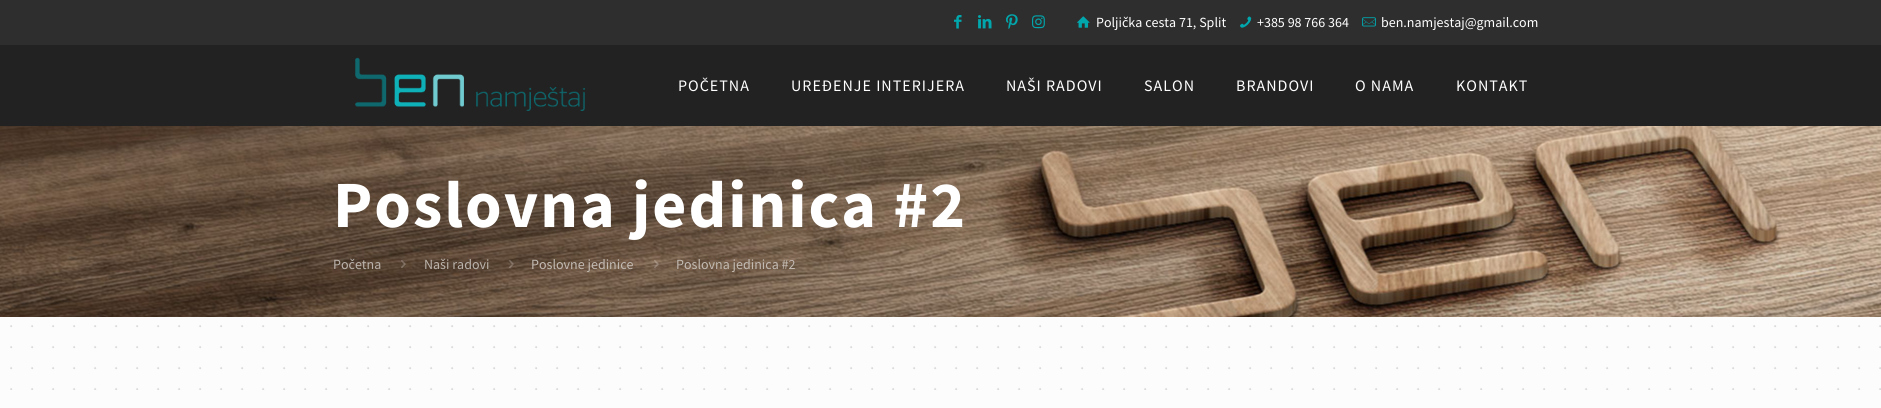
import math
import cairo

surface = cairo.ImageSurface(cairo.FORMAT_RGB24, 1881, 408)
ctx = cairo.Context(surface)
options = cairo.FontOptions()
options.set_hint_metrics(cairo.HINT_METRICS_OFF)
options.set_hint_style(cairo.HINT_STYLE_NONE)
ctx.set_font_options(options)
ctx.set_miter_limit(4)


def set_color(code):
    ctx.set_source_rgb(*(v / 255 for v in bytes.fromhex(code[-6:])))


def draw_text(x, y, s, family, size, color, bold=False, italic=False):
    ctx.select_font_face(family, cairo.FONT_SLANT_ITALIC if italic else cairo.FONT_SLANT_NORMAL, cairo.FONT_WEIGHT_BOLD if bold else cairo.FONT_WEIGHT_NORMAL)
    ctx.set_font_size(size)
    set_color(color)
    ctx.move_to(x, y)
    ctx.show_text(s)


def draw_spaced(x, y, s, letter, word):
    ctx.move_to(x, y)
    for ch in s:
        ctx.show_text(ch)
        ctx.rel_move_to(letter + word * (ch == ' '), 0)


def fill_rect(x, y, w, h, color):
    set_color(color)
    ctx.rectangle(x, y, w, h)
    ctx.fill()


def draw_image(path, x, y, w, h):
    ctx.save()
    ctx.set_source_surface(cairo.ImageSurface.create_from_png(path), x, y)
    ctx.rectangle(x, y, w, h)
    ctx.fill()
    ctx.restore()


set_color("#fcfcfc")
ctx.paint()
draw_image("assets/img1.png", 10, 325, 1871, 65)
fill_rect(0, 45, 1881, 81, "#222222")
fill_rect(0, 0, 1881, 45, "#2f2e2e")
draw_image("assets/img2.png", 954, 15, 8, 14)
draw_image("assets/img3.png", 978, 15, 14, 14)
draw_image("assets/img4.png", 1006, 14, 12, 15)
draw_image("assets/img5.png", 1032, 15, 13, 14)
draw_image("assets/img6.png", 1077, 16, 13, 12)
draw_text(1096, 27, "Poljička cesta 71, Split", "Source Sans Pro", 14, "#ffffff")
draw_image("assets/img7.png", 1240, 16, 12, 12)
draw_text(1257, 27, "+385 98 766 364", "Source Sans Pro", 14, "#ffffff")
draw_image("assets/img8.png", 1362, 17, 14, 10)
draw_text(1381, 27, "ben.namjestaj@gmail.com", "Source Sans Pro", 14, "#ffffff")
draw_image("assets/img9.png", 355, 57, 230, 54)
ctx.set_font_size(16)
draw_spaced(678, 91, "POČETNA", 1, 0)
draw_spaced(791, 91, "UREĐENJE INTERIJERA", 1, 0)
draw_spaced(1006, 91, "NAŠI RADOVI", 1, 0)
draw_spaced(1144, 91, "SALON", 1, 0)
draw_spaced(1236, 91, "BRANDOVI", 1, 0)
draw_spaced(1355, 91, "O NAMA", 1, 0)
draw_spaced(1456, 91, "KONTAKT", 1, 0)
draw_image("assets/img10.png", 0, 126, 1881, 191)
ctx.select_font_face("Source Sans Pro", cairo.FONT_SLANT_NORMAL, cairo.FONT_WEIGHT_BOLD)
ctx.set_font_size(66)
draw_spaced(333, 227, "Poslovna jedinica #2", 2, 0)
draw_text(333, 269, "Početna", "Source Sans Pro", 14, "#bbb4ad")
draw_image("assets/img11.png", 401, 260, 5, 8)
draw_text(424, 269, "Naši radovi", "Source Sans Pro", 14, "#bbb4ad")
draw_image("assets/img12.png", 509, 260, 5, 8)
draw_text(531, 269, "Poslovne jedinice", "Source Sans Pro", 14, "#c3bbb3")
draw_image("assets/img13.png", 654, 260, 5, 8)
draw_text(676, 269, "Poslovna jedinica #2", "Source Sans Pro", 14, "#c3bbb3")
surface.write_to_png("output.png")
